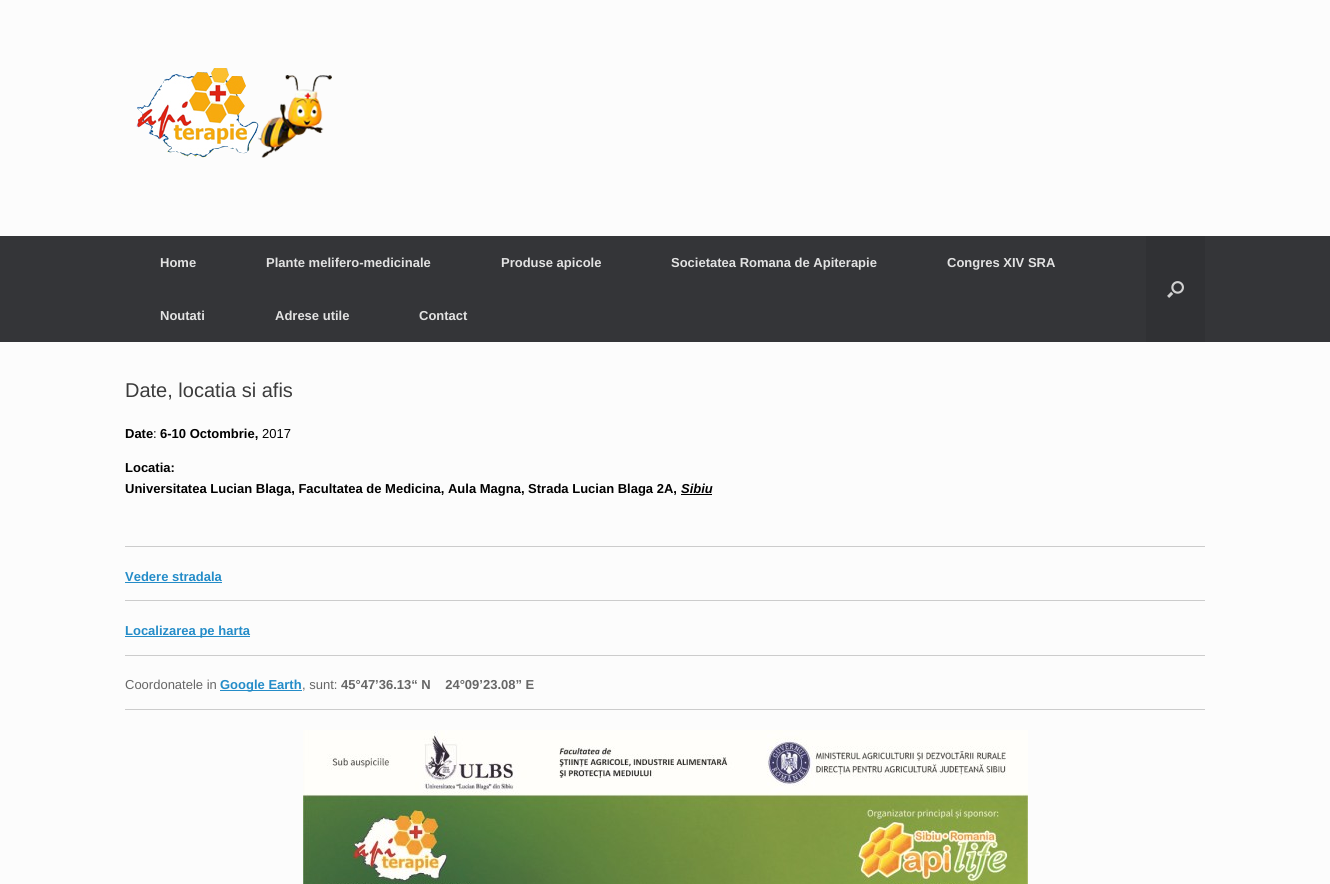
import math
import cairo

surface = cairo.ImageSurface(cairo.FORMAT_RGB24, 1330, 884)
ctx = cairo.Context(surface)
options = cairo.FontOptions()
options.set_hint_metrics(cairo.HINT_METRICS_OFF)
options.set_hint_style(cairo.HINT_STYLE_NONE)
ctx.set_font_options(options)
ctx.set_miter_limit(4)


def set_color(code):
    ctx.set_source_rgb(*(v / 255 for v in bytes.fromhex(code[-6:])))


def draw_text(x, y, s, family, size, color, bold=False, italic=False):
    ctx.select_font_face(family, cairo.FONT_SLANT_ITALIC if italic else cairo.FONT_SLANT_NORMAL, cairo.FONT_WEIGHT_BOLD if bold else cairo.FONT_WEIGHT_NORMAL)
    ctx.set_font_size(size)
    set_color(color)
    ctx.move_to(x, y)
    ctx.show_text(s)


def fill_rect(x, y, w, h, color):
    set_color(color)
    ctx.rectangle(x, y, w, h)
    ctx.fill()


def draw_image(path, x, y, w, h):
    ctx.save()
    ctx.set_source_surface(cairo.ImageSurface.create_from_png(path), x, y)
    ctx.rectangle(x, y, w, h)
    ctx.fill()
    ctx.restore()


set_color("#fcfcfc")
ctx.paint()
draw_image("assets/img1.png", 136, 68, 196, 90)
fill_rect(0, 236, 1330, 106, "#343538")
draw_text(160, 267, "Home", "Liberation Sans", 13, "#e2e2e2", bold=True)
draw_text(266, 267, "Plante melifero-medicinale", "Liberation Sans", 13, "#e2e2e2", bold=True)
draw_text(501, 267, "Produse apicole", "Liberation Sans", 13, "#e2e2e2", bold=True)
draw_text(671, 267, "Societatea Romana de Apiterapie", "Liberation Sans", 13, "#e2e2e2", bold=True)
draw_text(947, 267, "Congres XIV SRA", "Liberation Sans", 13, "#e2e2e2", bold=True)
draw_text(160, 320, "Noutati", "Liberation Sans", 13, "#e2e2e2", bold=True)
draw_text(275, 320, "Adrese utile", "Liberation Sans", 13, "#e2e2e2", bold=True)
draw_text(419, 320, "Contact", "Liberation Sans", 13, "#e2e2e2", bold=True)
fill_rect(1146, 236, 59, 106, "#303134")
draw_image("assets/img2.png", 1167, 281, 17, 17)
draw_text(125, 397, "Date, locatia si afis", "Liberation Sans", 20, "#3b3b3b")
draw_text(125, 438, "Date", "Liberation Sans", 13, "#000000", bold=True)
draw_text(153, 438, ":", "Liberation Sans", 13, "#000000")
draw_text(160, 438, "6-10 Octombrie,", "Liberation Sans", 13, "#000000", bold=True)
draw_text(262, 438, "2017", "Liberation Sans", 13, "#000000")
draw_text(125, 472, "Locatia:", "Liberation Sans", 13, "#000000", bold=True)
draw_text(125, 493, "Universitatea Lucian Blaga, Facultatea de Medicina, Aula Magna, Strada Lucian Blaga 2A,", "Liberation Sans", 13, "#000000", bold=True)
draw_text(681, 493, "Sibiu", "Liberation Sans", 13, "#000000", bold=True, italic=True)
fill_rect(681, 494, 31, 1, "#000000")
fill_rect(125, 546, 1080, 1, "#cccccc")
draw_text(125, 581, "Vedere stradala", "Liberation Sans", 13, "#248cc8", bold=True)
fill_rect(125, 582, 97, 1, "#248cc8")
fill_rect(125, 600, 1080, 1, "#cccccc")
fill_rect(125, 636, 125, 1, "#248cc8")
draw_text(125, 635, "Localizarea pe harta", "Liberation Sans", 13, "#248cc8", bold=True)
fill_rect(125, 655, 1080, 1, "#cccccc")
draw_text(125, 689, "Coordonatele in", "Liberation Sans", 13, "#666666")
fill_rect(220, 690, 82, 1, "#248cc8")
draw_text(220, 689, "Google Earth", "Liberation Sans", 13, "#248cc8", bold=True)
draw_text(302, 689, ", sunt:", "Liberation Sans", 13, "#666666")
draw_text(341, 689, "45°47’36.13“ N    24°09’23.08” E", "Liberation Sans", 13, "#666666", bold=True)
fill_rect(125, 709, 1080, 1, "#cccccc")
draw_image("assets/img3.png", 303, 730, 725, 154)
surface.write_to_png("output.png")
